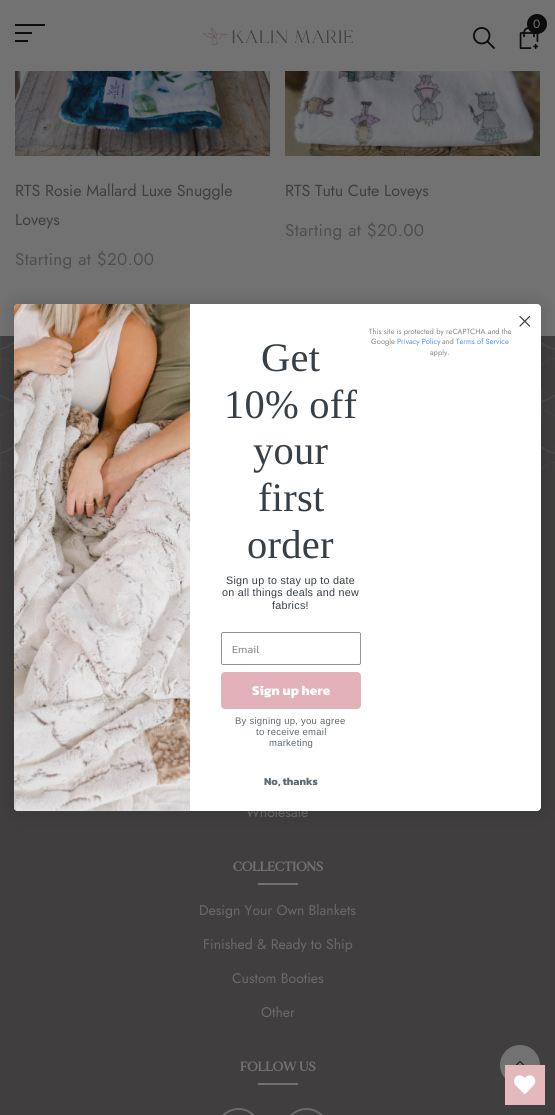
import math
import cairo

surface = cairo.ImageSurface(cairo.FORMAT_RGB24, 555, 1115)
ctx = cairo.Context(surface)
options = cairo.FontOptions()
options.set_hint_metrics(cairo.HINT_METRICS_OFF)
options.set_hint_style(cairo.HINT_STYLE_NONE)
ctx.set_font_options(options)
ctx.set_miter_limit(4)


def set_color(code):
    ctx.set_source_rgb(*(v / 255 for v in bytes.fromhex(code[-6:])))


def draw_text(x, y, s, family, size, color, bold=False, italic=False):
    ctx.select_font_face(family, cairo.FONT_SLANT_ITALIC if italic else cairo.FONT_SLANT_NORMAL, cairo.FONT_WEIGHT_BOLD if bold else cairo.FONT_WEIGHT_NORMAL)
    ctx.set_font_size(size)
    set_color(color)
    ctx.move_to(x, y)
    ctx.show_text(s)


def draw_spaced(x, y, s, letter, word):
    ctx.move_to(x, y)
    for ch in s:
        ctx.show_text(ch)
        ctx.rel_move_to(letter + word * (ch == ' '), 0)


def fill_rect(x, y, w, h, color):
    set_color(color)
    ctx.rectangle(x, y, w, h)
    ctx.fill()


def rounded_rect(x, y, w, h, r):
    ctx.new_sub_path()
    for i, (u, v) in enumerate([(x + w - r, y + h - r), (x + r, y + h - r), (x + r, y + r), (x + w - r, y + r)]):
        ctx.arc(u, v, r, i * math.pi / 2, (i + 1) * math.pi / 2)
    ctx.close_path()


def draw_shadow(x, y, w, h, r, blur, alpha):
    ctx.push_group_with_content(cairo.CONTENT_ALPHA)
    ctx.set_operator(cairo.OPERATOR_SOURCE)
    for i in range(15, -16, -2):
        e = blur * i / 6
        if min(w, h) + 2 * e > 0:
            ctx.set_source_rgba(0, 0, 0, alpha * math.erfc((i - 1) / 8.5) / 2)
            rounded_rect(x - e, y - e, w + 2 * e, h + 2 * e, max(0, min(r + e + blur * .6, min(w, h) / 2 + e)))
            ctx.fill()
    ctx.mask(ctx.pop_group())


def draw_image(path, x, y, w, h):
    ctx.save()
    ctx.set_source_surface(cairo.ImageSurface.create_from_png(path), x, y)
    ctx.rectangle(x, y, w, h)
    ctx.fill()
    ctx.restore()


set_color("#727272")
ctx.paint()
fill_rect(15, 24, 30, 2, "#0c0c0c")
fill_rect(15, 32, 17, 2, "#0c0c0c")
fill_rect(15, 40, 13, 2, "#0c0c0c")
draw_image("assets/img1.png", 203, 27, 150, 18)
draw_image("assets/img2.png", 519, 27, 20, 22)
ctx.arc(537, 24, 10, 0, 2 * math.pi)
ctx.fill()
draw_text(533, 28, "0", "Jost", 12, "#727272")
draw_image("assets/img3.png", 473, 27, 22, 22)
draw_image("assets/img4.png", 15, 71, 255, 85)
draw_text(15, 196, "RTS Rosie Mallard Luxe Snuggle", "Jost", 16, "#403e3f")
draw_text(15, 225, "Loveys", "Jost", 16, "#403e3f")
ctx.set_font_size(17)
set_color("#4e4e4e")
draw_spaced(15, 265, "Starting at $20.00", 0.4, 0)
draw_image("assets/img5.png", 285, 71, 255, 85)
draw_text(285, 196, "RTS Tutu Cute Loveys", "Jost", 16, "#403e3f")
ctx.set_font_size(17)
set_color("#4e4e4e")
draw_spaced(285, 236, "Starting at $20.00", 0.4, 0)
fill_rect(0, 336, 555, 779, "#403e3f")
draw_image("assets/img6.png", 0, 336, 555, 140)
draw_text(246, 817, "Wholesale", "Jost", 14, "#6a6a6a")
draw_text(233, 871, "COLLECTIONS", "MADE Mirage", 13, "#727272", bold=True)
fill_rect(258, 883, 40, 2, "#727272")
draw_text(199, 915, "Design Your Own Blankets", "Jost", 14, "#6a6a6a")
draw_text(203, 949, "Finished & Ready to Ship", "Jost", 14, "#6a6a6a")
draw_text(232, 983, "Custom Booties", "Jost", 14, "#6a6a6a")
draw_text(261, 1017, "Other", "Jost", 14, "#6a6a6a")
draw_text(240, 1071, "FOLLOW US", "MADE Mirage", 13, "#727272", bold=True)
fill_rect(258, 1083, 40, 2, "#727272")
rounded_rect(217, 1109, 43, 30, 21.5)
set_color("#6a6a6a")
ctx.stroke()
rounded_rect(285, 1109, 43, 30, 21.5)
ctx.stroke()
set_color("#727272")
ctx.arc(520, 1065, 20, 0, 2 * math.pi)
ctx.fill()
draw_image("assets/img7.png", 516, 1061, 9, 4)
set_color("#000000")
draw_shadow(14, 304, 527, 507, 4, 10, 0.15)
set_color("#ffffff")
rounded_rect(14, 304, 527, 507, 4)
ctx.fill()
ctx.new_path()
ctx.move_to(520, 316.5)
ctx.line_to(529.5, 326)
ctx.move_to(520, 326)
ctx.line_to(529.5, 316.5)
ctx.close_path()
set_color("#373f47")
ctx.set_line_width(1.2)
ctx.set_line_cap(cairo.LINE_CAP_ROUND)
ctx.set_line_join(cairo.LINE_JOIN_ROUND)
ctx.stroke()
draw_image("assets/img8.png", 14, 304, 177, 508)
ctx.select_font_face("Liberation Serif")
ctx.set_font_size(40.5)
draw_spaced(261, 371, "Get", 0.25, 0)
draw_spaced(224, 418, "10% off", 0.25, 0)
draw_spaced(253, 464, "your", 0.25, 0)
draw_spaced(258, 511, "first", 0.25, 0)
draw_spaced(247, 558, "order", 0.25, 0)
ctx.select_font_face("Liberation Sans")
ctx.set_font_size(10.8)
draw_spaced(226, 584, "Sign up to stay up to date", 0.25, 0)
draw_spaced(222, 596, "on all things deals and new", 0.25, 0)
draw_spaced(272, 609, "fabrics!", 0.25, 0)
rounded_rect(221.35, 632.35, 139.3, 32.3, 2.15)
set_color("#606a72")
ctx.set_line_width(0.7)
ctx.set_line_cap(cairo.LINE_CAP_BUTT)
ctx.set_line_join(cairo.LINE_JOIN_MITER)
ctx.stroke()
draw_text(232, 653, "Email", "Kanit", 10.8, "#949596")
set_color("#e2b1b9")
rounded_rect(221, 672, 140, 37, 4)
ctx.fill()
draw_text(252, 695, "Sign up here", "Kanit", 13.5, "#ffffff", bold=True)
ctx.select_font_face("Liberation Sans")
ctx.set_font_size(9.5)
set_color("#606a72")
draw_spaced(235, 724, "By signing up, you agree", 0.25, 0)
draw_spaced(256, 735, "to receive email", 0.25, 0)
draw_spaced(269, 746, "marketing", 0.25, 0)
draw_text(264, 785, "No, thanks", "Kanit", 10.8, "#606a72", bold=True)
draw_text(369, 334, "This site is protected by reCAPTCHA and the", "Jost", 7.5, "#858585")
draw_text(371, 344, "Google", "Jost", 7.5, "#858585")
draw_text(397, 344, "Privacy Policy", "Jost", 7.5, "#488fed")
draw_text(442, 344, "and", "Jost", 7.5, "#858585")
draw_text(456, 344, "Terms of Service", "Jost", 7.5, "#488fed")
draw_text(430, 355, "apply.", "Jost", 7.5, "#858585")
fill_rect(505, 1065, 40, 40, "#e4b9be")
draw_image("assets/img9.png", 514, 1075, 22, 19)
surface.write_to_png("output.png")
